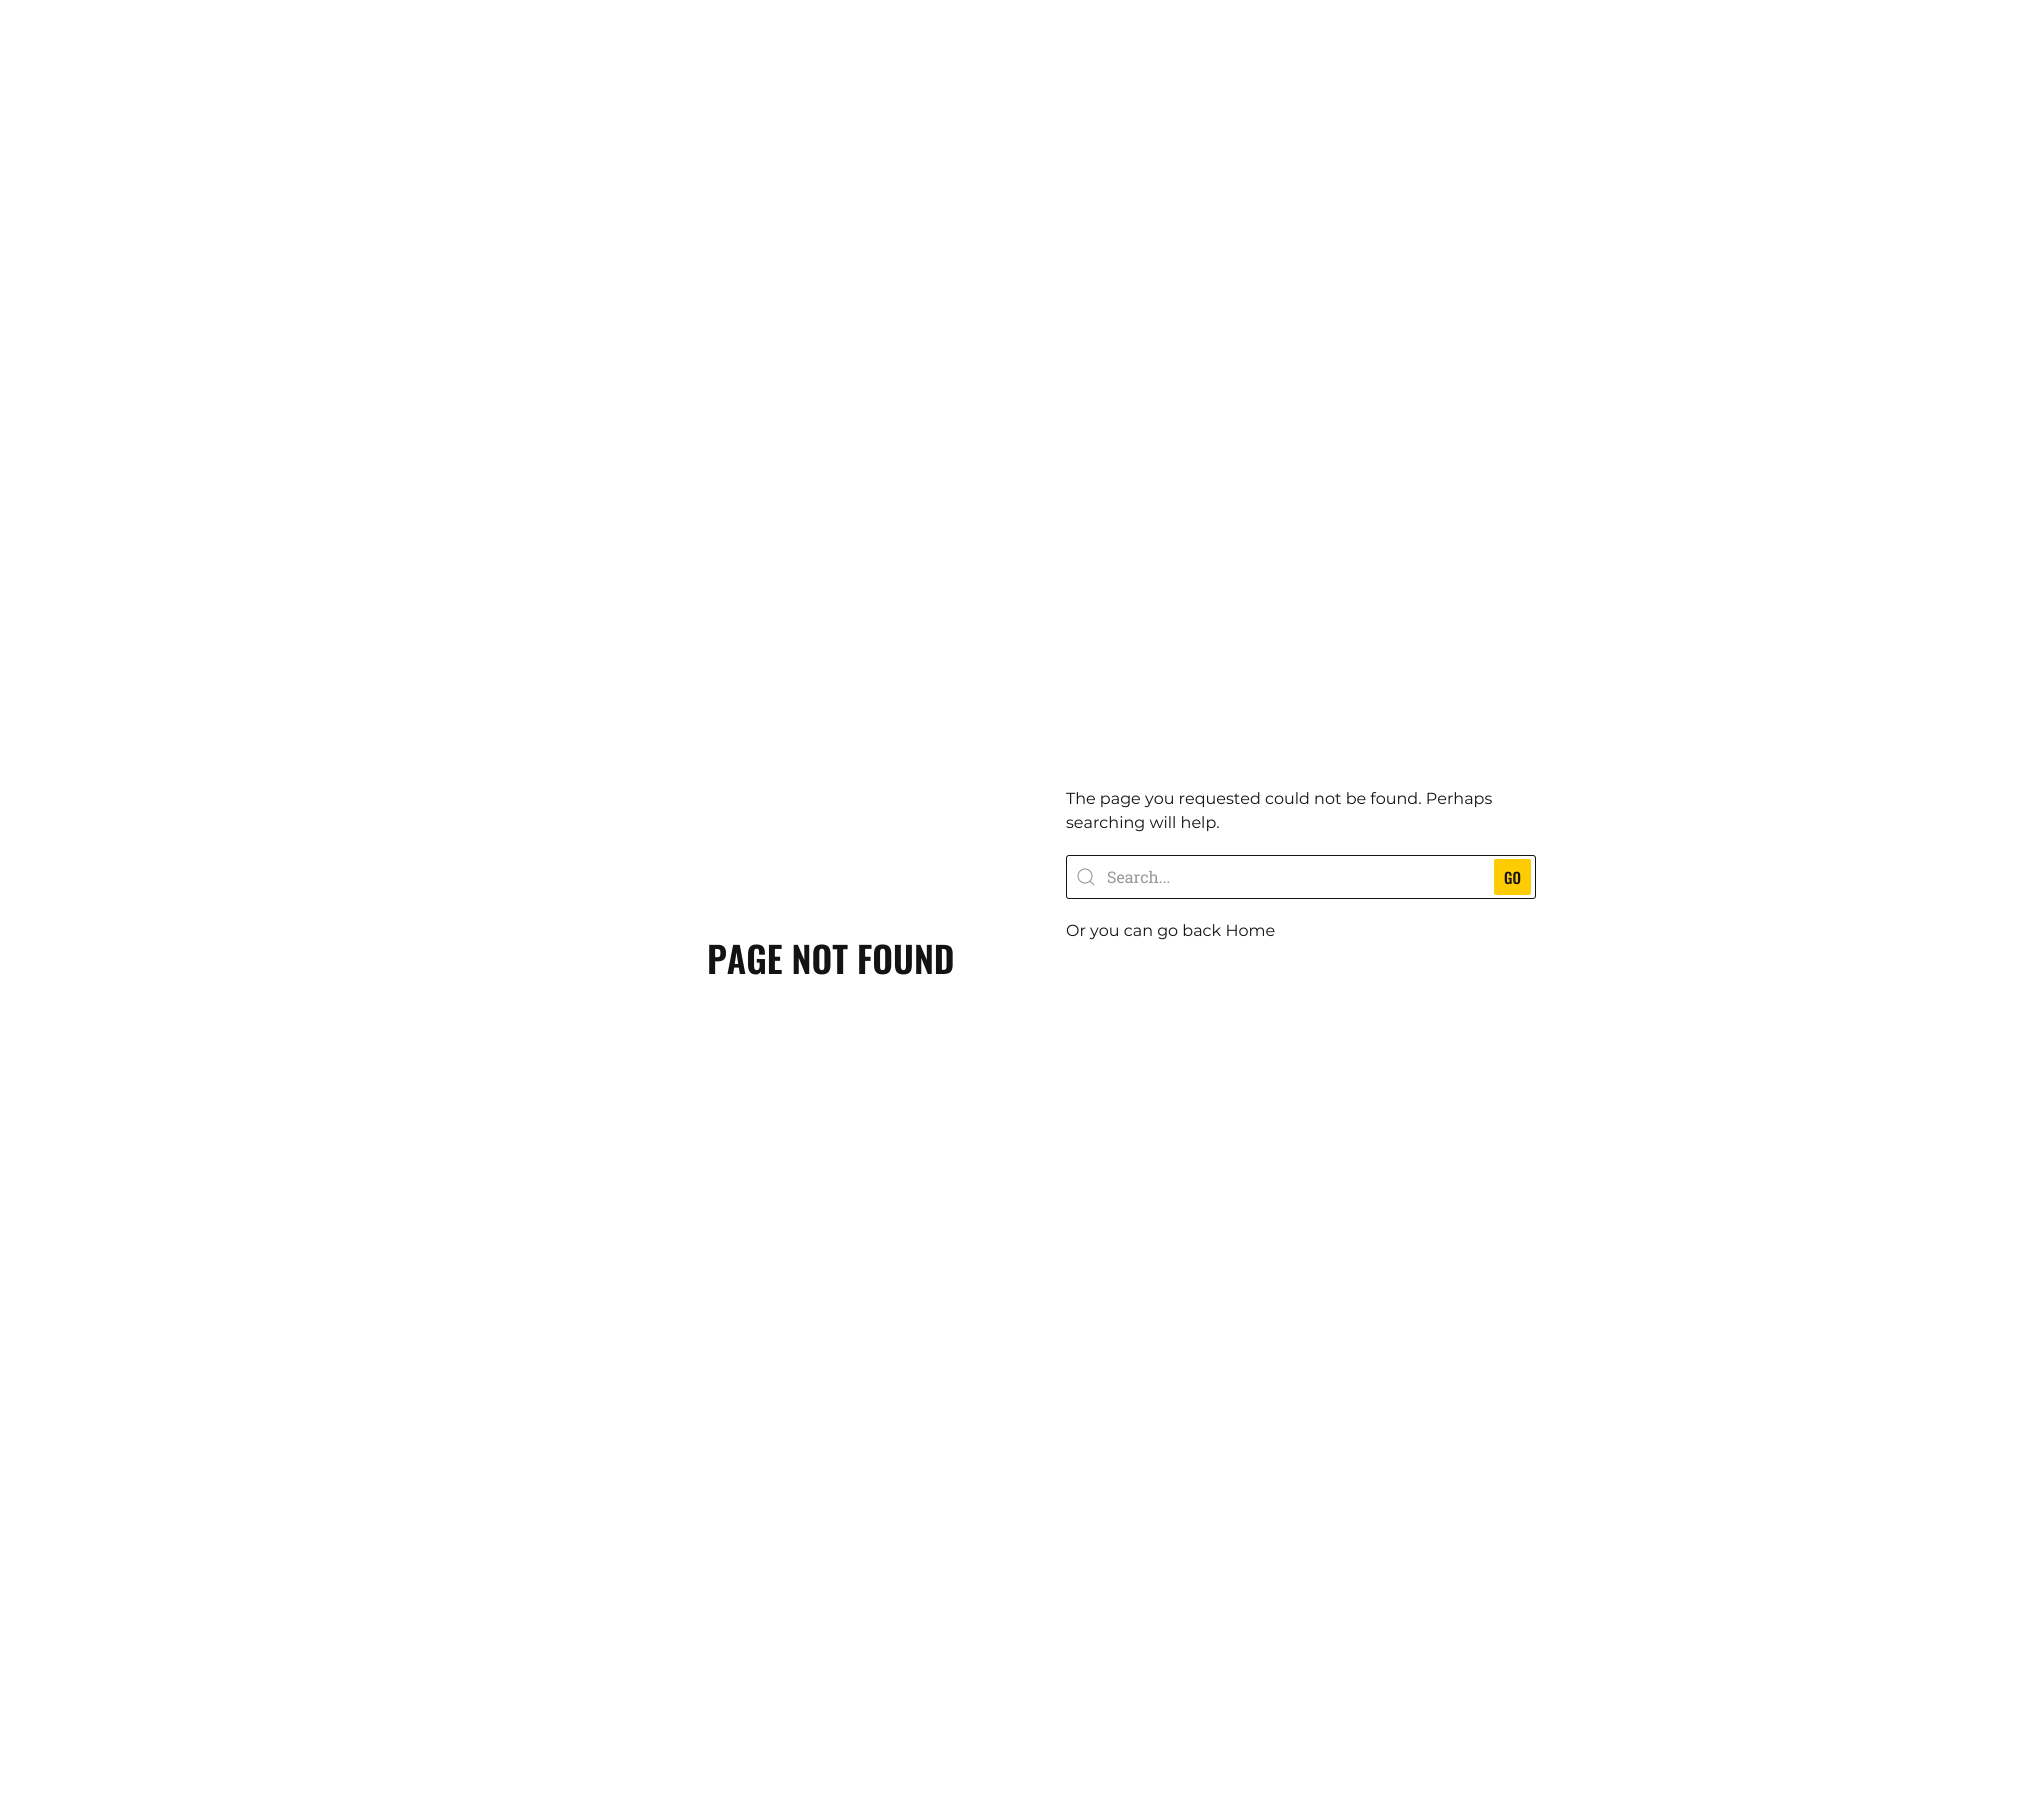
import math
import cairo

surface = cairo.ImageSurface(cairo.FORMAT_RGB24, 2036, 1801)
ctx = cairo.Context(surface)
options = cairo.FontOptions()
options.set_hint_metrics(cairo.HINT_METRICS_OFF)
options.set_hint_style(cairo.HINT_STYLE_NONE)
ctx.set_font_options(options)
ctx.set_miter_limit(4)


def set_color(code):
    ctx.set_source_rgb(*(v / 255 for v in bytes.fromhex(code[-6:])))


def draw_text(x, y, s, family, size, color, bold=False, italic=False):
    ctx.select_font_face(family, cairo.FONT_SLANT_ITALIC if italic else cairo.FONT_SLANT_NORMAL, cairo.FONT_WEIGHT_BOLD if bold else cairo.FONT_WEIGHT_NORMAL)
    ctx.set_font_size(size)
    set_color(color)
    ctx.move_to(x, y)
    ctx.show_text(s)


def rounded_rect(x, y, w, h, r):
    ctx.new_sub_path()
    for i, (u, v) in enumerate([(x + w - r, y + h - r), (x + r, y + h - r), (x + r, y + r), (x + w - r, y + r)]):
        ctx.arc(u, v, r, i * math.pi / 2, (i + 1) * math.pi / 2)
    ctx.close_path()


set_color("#ffffff")
ctx.paint()
draw_text(1066, 804, "The page you requested could not be found. Perhaps", "Montserrat", 16, "#131313")
draw_text(1066, 828, "searching will help.", "Montserrat", 16, "#131313")
rounded_rect(1066.5, 855.5, 469, 43, 2.5)
ctx.set_line_width(1)
ctx.stroke()
ctx.arc(1085, 876, 7, 0, 2 * math.pi)
set_color("#999999")
ctx.set_line_width(1.1)
ctx.stroke()
ctx.new_path()
ctx.move_to(1090, 881)
ctx.line_to(1094, 885)
ctx.close_path()
ctx.stroke()
draw_text(1107, 883, "Search...", "Roboto Slab", 16, "#999999")
set_color("#fecc02")
rounded_rect(1494, 859, 37, 36, 2)
ctx.fill()
draw_text(1504, 884, "GO", "Oswald Medium", 15, "#131313")
draw_text(1066, 936, "Or you can go back Home", "Montserrat", 16, "#131313")
draw_text(707, 974, "PAGE NOT FOUND", "Oswald SemiBold", 36, "#131313")
surface.write_to_png("output.png")
